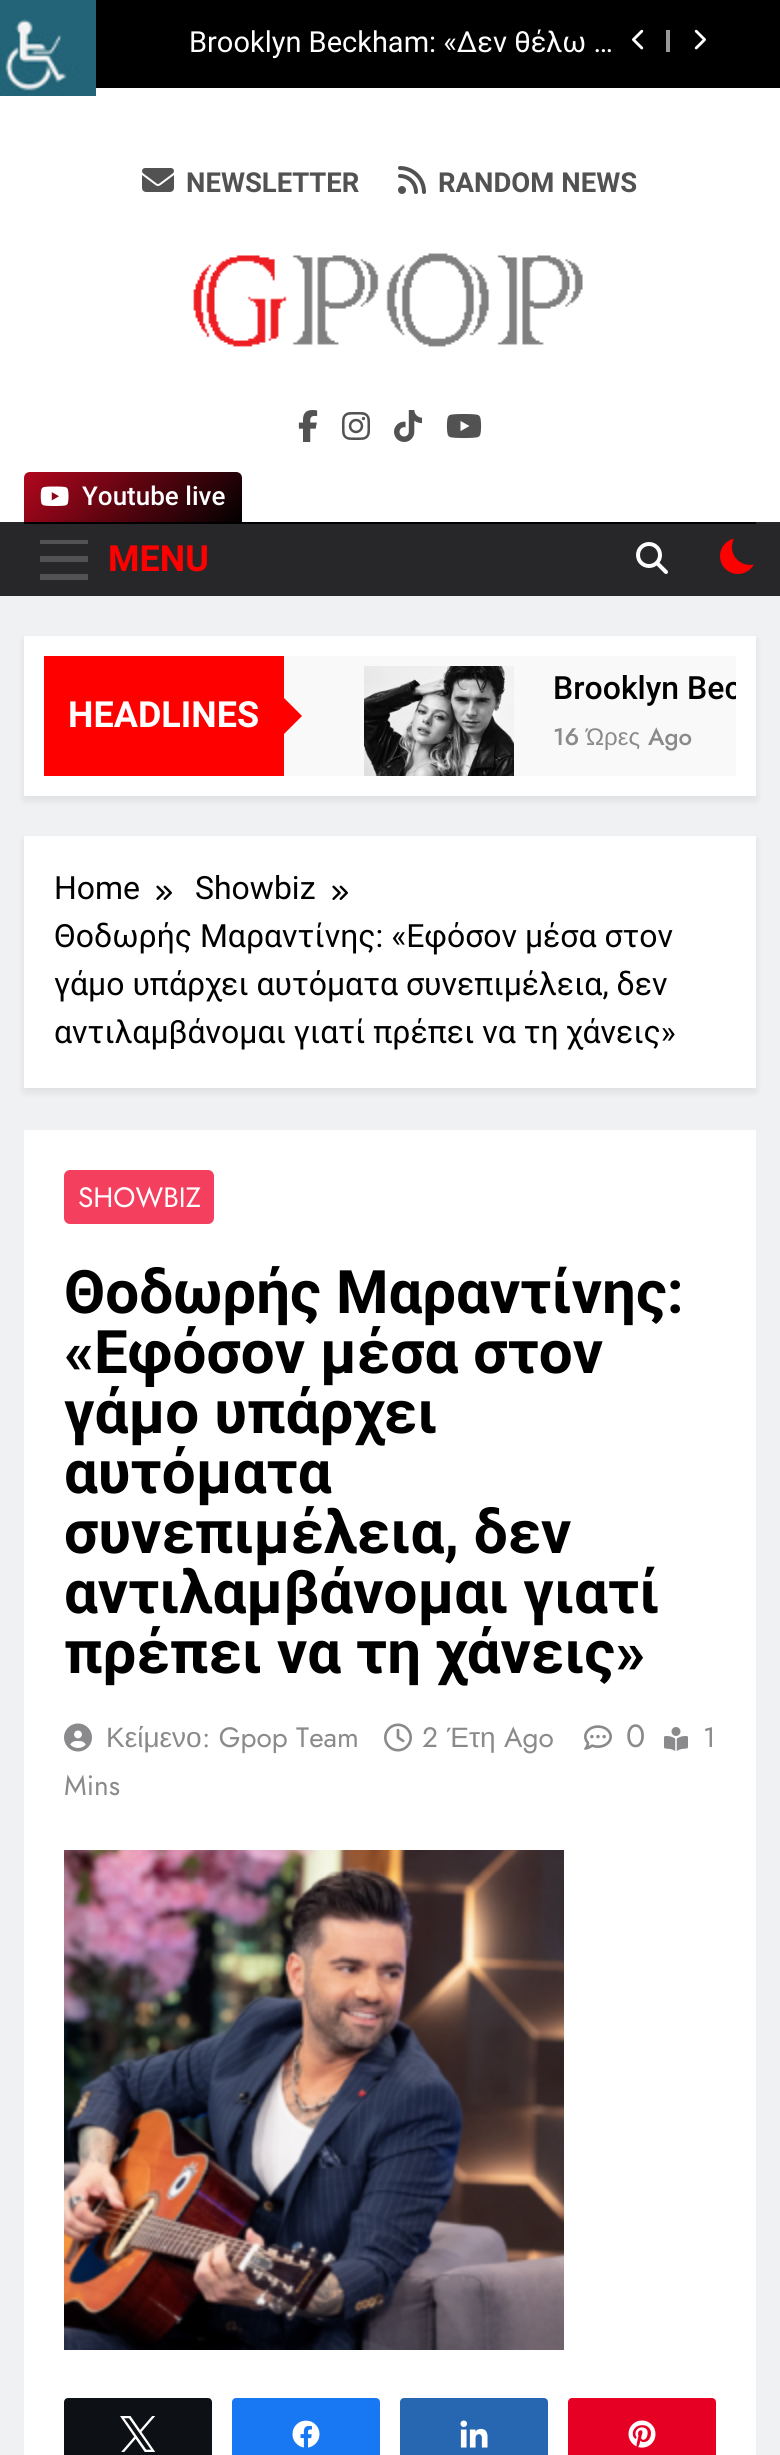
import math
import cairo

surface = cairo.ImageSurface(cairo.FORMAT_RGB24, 780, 2455)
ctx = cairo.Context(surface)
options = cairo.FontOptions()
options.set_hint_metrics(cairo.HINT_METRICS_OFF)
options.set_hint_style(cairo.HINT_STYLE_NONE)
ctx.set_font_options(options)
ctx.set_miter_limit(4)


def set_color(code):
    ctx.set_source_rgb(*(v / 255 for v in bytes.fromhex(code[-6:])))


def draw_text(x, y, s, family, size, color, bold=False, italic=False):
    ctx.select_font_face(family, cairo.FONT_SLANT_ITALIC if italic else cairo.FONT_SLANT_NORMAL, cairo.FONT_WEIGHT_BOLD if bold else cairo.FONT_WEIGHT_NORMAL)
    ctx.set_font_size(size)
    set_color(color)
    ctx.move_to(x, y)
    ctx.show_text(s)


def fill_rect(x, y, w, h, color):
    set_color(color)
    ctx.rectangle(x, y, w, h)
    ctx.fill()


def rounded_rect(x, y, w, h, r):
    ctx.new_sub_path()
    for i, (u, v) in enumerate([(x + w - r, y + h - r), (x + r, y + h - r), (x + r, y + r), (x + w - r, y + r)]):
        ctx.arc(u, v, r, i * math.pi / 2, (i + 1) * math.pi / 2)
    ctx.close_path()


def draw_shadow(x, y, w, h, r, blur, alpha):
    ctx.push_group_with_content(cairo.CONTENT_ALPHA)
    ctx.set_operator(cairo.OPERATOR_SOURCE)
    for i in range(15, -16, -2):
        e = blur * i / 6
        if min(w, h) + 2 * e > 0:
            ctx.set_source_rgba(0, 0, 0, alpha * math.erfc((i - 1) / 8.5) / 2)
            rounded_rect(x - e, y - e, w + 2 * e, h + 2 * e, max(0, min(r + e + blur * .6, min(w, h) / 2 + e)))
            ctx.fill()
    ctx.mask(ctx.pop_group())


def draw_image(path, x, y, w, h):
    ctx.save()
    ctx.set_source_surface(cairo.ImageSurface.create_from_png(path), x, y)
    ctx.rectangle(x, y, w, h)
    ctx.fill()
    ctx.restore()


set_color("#f0f1f2")
ctx.paint()
fill_rect(0, 88, 780, 434, "#ffffff")
draw_image("assets/img1.png", 0, 0, 96, 96)
fill_rect(96, 0, 684, 88, "#000000")
draw_text(189, 52, "Brooklyn Beckham: «Δεν θέλω …", "Roboto", 29, "#ffffff")
draw_image("assets/img2.png", 632, 29, 12, 21)
fill_rect(666, 30, 4, 22, "#999999")
draw_image("assets/img3.png", 694, 29, 12, 21)
draw_image("assets/img4.png", 142, 168, 32, 24)
draw_text(186, 192, "NEWSLETTER", "Roboto", 27.5, "#525252", bold=True)
draw_image("assets/img5.png", 398, 166, 28, 28)
draw_text(438, 192, "RANDOM NEWS", "Roboto", 27.5, "#525252", bold=True)
draw_image("assets/img6.png", 193, 253, 390, 94)
draw_image("assets/img7.png", 298, 410, 20, 32)
draw_image("assets/img8.png", 342, 412, 28, 28)
draw_image("assets/img9.png", 394, 410, 28, 32)
draw_image("assets/img10.png", 446, 414, 36, 24)
fill_rect(0, 522, 780, 74, "#27272a")
fill_rect(24, 522, 732, 2, "#000000")
gradient = cairo.LinearGradient(66, 430, 200, 564)
gradient.add_color_stop_rgba(0, 0.698, 0.027, 0.114, 1)
gradient.add_color_stop_rgba(1, 0.004, 0.004, 0.004, 1)
ctx.set_source(gradient)
ctx.new_path()
ctx.move_to(30, 472)
ctx.line_to(236, 472)
ctx.curve_to(239.5, 472, 242, 474.5, 242, 478)
ctx.line_to(242, 522)
ctx.line_to(24, 522)
ctx.line_to(24, 478)
ctx.curve_to(24, 474.5, 26.5, 472, 30, 472)
ctx.close_path()
ctx.fill()
draw_image("assets/img11.png", 40, 486, 29, 20)
draw_text(82, 505, "Youtube live", "Roboto Medium", 26, "#ffffff")
fill_rect(40, 540, 48, 4, "#525252")
fill_rect(40, 556, 48, 6, "#525252")
fill_rect(40, 574, 48, 6, "#525252")
draw_text(108, 571, "MENU", "Roboto", 36, "#ff0000", bold=True)
draw_image("assets/img12.png", 636, 542, 32, 32)
ctx.new_path()
ctx.move_to(754, 564.5)
ctx.curve_to(738.5, 567.5, 727, 552.5, 734, 538.5)
ctx.curve_to(726, 540.5, 720, 547.5, 720, 556)
ctx.curve_to(720, 566, 728, 574, 738, 574)
ctx.curve_to(745, 574, 750.5, 570, 754, 564.5)
ctx.close_path()
ctx.fill()
set_color("#000000")
draw_shadow(24, 640, 732, 160, 0, 4, 0.08)
fill_rect(24, 636, 732, 160, "#ffffff")
fill_rect(44, 656, 240, 120, "#ff0000")
draw_text(68, 727, "HEADLINES", "Roboto", 36, "#ffffff", bold=True)
fill_rect(284, 656, 452, 120, "#f9f9f9")
set_color("#ff0000")
ctx.new_path()
ctx.move_to(282, 736)
ctx.line_to(282, 696)
ctx.line_to(302, 716)
ctx.close_path()
ctx.fill()
draw_image("assets/img13.png", 364, 666, 150, 110)
ctx.save()
ctx.rectangle(554, 670, 182, 38)
ctx.clip()
draw_text(553, 699, "Brooklyn Bec", "Roboto Medium", 32, "#000000")
ctx.restore()
draw_text(553, 745, "16", "Jost Medium", 24, "#8a8a8c")
draw_text(586, 745, "Ώρες", "Liberation Sans", 24, "#8a8a8c")
draw_text(648, 745, "Ago", "Jost Medium", 24, "#8a8a8c")
set_color("#000000")
draw_shadow(24, 840, 732, 252, 0, 4, 0.08)
fill_rect(24, 836, 732, 252, "#ffffff")
draw_text(54, 899, "Home", "Roboto", 32, "#000000")
draw_image("assets/img14.png", 156, 885, 16, 15)
draw_text(195, 899, "Showbiz", "Roboto", 32, "#000000")
draw_image("assets/img14.png", 332, 885, 16, 15)
draw_text(54, 947, "Θοδωρής Μαραντίνης: «Εφόσον μέσα στον", "Roboto", 32, "#000000")
draw_text(54, 995, "γάμο υπάρχει αυτόματα συνεπιμέλεια, δεν", "Roboto", 32, "#000000")
draw_text(54, 1043, "αντιλαμβάνομαι γιατί πρέπει να τη χάνεις»", "Roboto", 32, "#000000")
fill_rect(24, 1130, 732, 1325, "#ffffff")
set_color("#f43f5e")
rounded_rect(64, 1170, 150, 54, 6)
ctx.fill()
draw_text(78, 1207, "SHOWBIZ", "Jost", 28, "#ffffff")
draw_text(64, 1313, "Θοδωρής Μαραντίνης:", "Roboto", 60, "#000000", bold=True)
draw_text(64, 1373, "«Εφόσον μέσα στον", "Roboto", 60, "#000000", bold=True)
draw_text(64, 1433, "γάμο υπάρχει", "Roboto", 60, "#000000", bold=True)
draw_text(64, 1493, "αυτόματα", "Roboto", 60, "#000000", bold=True)
draw_text(64, 1553, "συνεπιμέλεια, δεν", "Roboto", 60, "#000000", bold=True)
draw_text(64, 1613, "αντιλαμβάνομαι γιατί", "Roboto", 60, "#000000", bold=True)
draw_text(64, 1673, "πρέπει να τη χάνεις»", "Roboto", 60, "#000000", bold=True)
draw_image("assets/img15.png", 64, 1723, 28, 29)
draw_text(106, 1747, "Κείμενο", "Liberation Sans", 28, "#8a8a8c")
draw_text(202, 1747, ": Gpop Team", "Jost", 28, "#8a8a8c")
draw_image("assets/img16.png", 384, 1723, 28, 29)
draw_text(422, 1747, "2", "Jost", 28, "#8a8a8c")
draw_text(447, 1747, "Έτη", "Liberation Sans", 28, "#8a8a8c")
draw_text(504, 1747, "Ago", "Jost", 28, "#8a8a8c")
draw_image("assets/img17.png", 584, 1725, 28, 25)
draw_text(626, 1747, "0", "Jost", 32, "#8a8a8c")
draw_image("assets/img18.png", 664, 1727, 24, 24)
draw_text(703, 1747, "1", "Jost", 28, "#8a8a8c")
draw_text(64, 1795, "Mins", "Jost", 28, "#8a8a8c")
draw_image("assets/img19.png", 64, 1850, 500, 500)
set_color("#0d1014")
rounded_rect(65, 2399, 146, 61, 3)
ctx.fill_preserve()
ctx.stroke()
draw_image("assets/img20.png", 120, 2416, 36, 36)
set_color("#1877f2")
rounded_rect(233, 2399, 146, 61, 3)
ctx.fill_preserve()
ctx.stroke()
draw_image("assets/img21.png", 292, 2420, 28, 28)
set_color("#2767b1")
rounded_rect(401, 2399, 146, 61, 3)
ctx.fill_preserve()
ctx.stroke()
draw_image("assets/img22.png", 460, 2420, 28, 28)
set_color("#e60023")
rounded_rect(569, 2399, 146, 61, 3)
ctx.fill_preserve()
ctx.stroke()
draw_image("assets/img23.png", 628, 2420, 28, 28)
surface.write_to_png("output.png")
